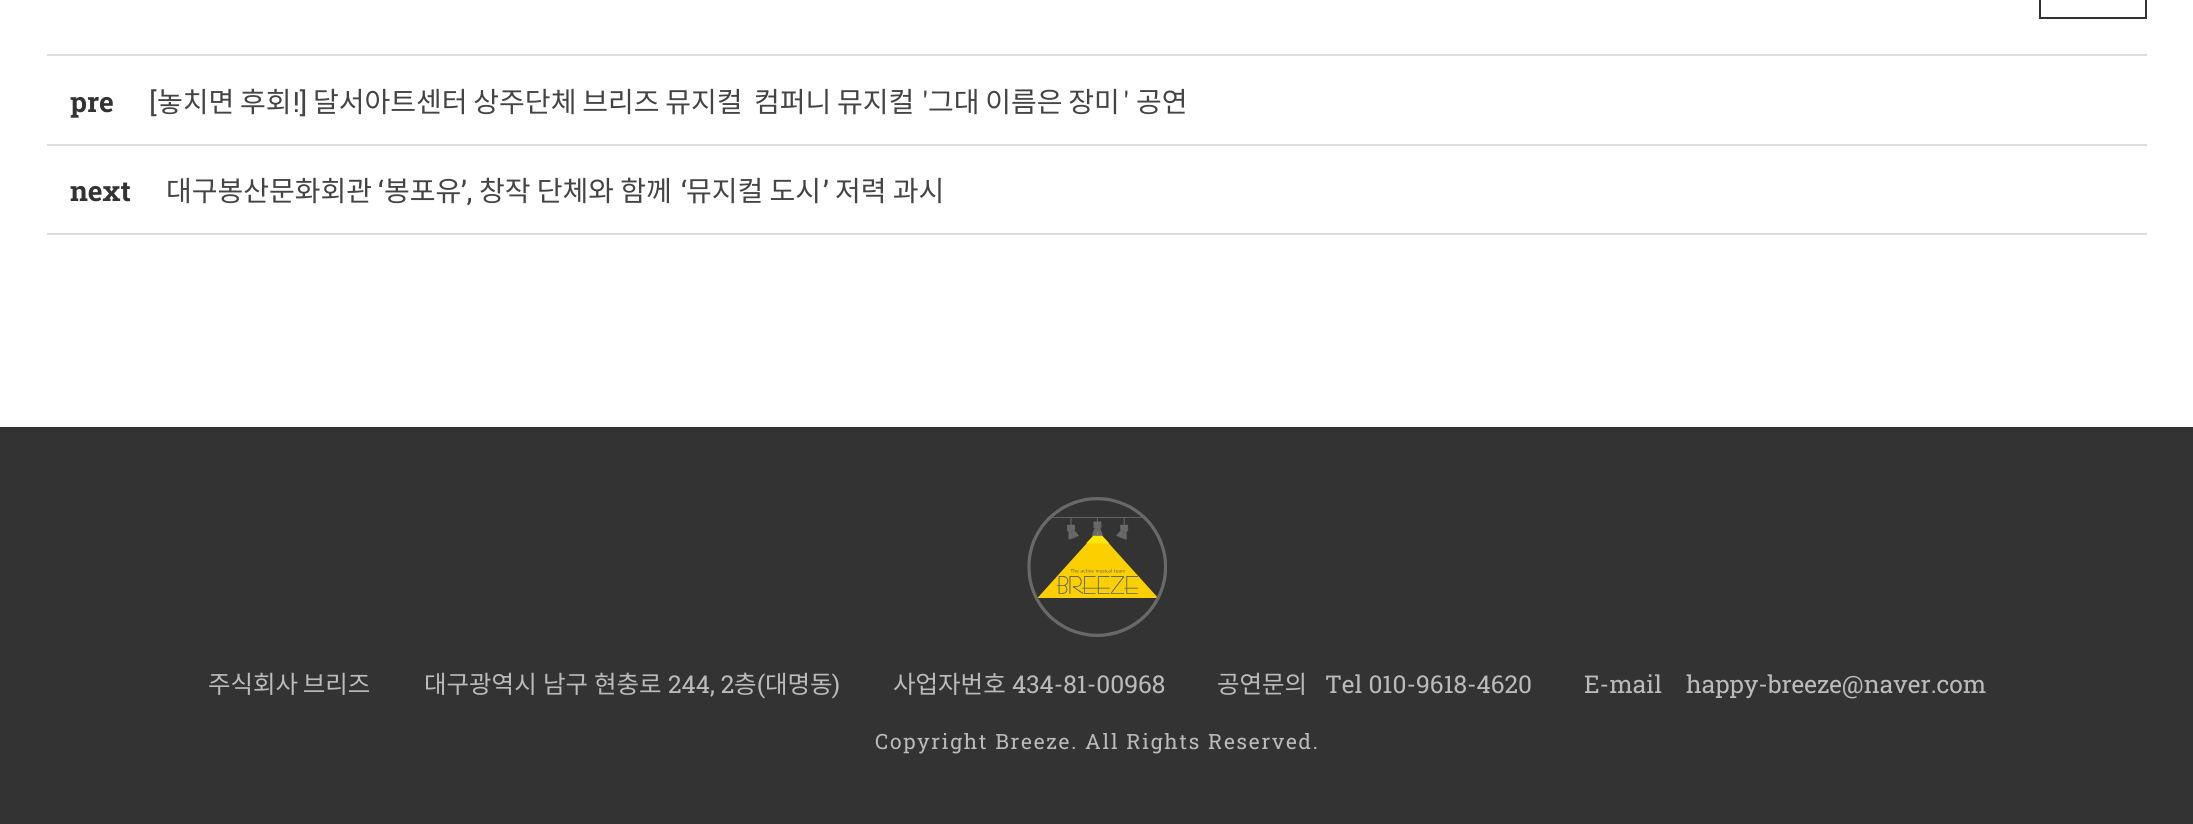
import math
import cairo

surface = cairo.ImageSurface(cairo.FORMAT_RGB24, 2193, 824)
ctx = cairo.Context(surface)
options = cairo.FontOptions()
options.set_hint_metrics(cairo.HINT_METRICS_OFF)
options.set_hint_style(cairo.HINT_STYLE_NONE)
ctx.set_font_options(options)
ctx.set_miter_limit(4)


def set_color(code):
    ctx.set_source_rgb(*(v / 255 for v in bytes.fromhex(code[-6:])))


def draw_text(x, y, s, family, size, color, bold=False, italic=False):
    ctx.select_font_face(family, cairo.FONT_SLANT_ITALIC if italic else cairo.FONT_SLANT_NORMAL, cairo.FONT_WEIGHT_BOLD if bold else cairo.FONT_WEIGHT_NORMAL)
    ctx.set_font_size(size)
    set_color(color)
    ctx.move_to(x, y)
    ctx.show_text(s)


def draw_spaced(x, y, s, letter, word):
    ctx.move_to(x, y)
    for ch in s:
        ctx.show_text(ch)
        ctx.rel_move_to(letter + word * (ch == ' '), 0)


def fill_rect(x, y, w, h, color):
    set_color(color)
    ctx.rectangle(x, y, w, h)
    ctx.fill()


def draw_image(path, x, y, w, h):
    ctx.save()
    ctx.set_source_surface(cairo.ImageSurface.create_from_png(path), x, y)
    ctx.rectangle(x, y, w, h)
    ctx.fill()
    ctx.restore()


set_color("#ffffff")
ctx.paint()
ctx.rectangle(2040, -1, 106, 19)
set_color("#333333")
ctx.stroke()
fill_rect(47, 233, 2100, 2, "#dddddd")
fill_rect(47, 54, 2100, 2, "#dddddd")
draw_text(149, 112, "[", "Roboto Slab", 28, "#444444")
ctx.select_font_face("Noto Sans KR")
draw_spaced(157, 112, "놓치면 후회", 0, -0.5)
draw_text(293, 112, "!]", "Roboto Slab", 28, "#444444")
ctx.select_font_face("Noto Sans KR")
draw_spaced(313, 112, "달서아트센터 상주단체 브리즈 뮤지컬", 0, -0.5)
draw_spaced(754, 112, "컴퍼니 뮤지컬", 0, -0.5)
draw_text(922, 112, "'", "Roboto Slab", 28, "#444444")
ctx.select_font_face("Noto Sans KR")
draw_spaced(928, 112, "그대 이름은 장미", 0, -0.5)
draw_text(1123, 112, "'", "Roboto Slab", 28, "#444444")
draw_text(1136, 112, "공연", "Noto Sans KR", 28, "#444444")
draw_text(70, 112, "pre", "Roboto Slab", 28, "#333333", bold=True)
fill_rect(47, 144, 2100, 2, "#dddddd")
draw_text(70, 201, "next", "Roboto Slab", 28, "#333333", bold=True)
draw_text(166, 201, "대구봉산문화회관", "Noto Sans KR", 28, "#444444")
draw_text(378, 201, "‘", "Roboto Slab", 28, "#444444")
draw_text(384, 201, "봉포유", "Noto Sans KR", 28, "#444444")
draw_text(461, 201, "’,", "Roboto Slab", 28, "#444444")
draw_text(479, 201, "창작 단체와 함께", "Noto Sans KR", 28, "#444444")
draw_text(681, 201, "‘", "Roboto Slab", 28, "#444444")
draw_text(686, 201, "뮤지컬 도시", "Noto Sans KR", 28, "#444444")
draw_text(823, 201, "’", "Roboto Slab", 28, "#444444")
draw_text(835, 201, "저력 과시", "Noto Sans KR", 28, "#444444")
fill_rect(0, 427, 2193, 397, "#333333")
draw_image("assets/img1.png", 1027, 497, 140, 140)
ctx.set_font_size(24.5)
set_color("#bbbbbb")
draw_spaced(208, 693, "주식회사 브리즈", 0, -1)
draw_text(424, 693, "대구광역시", "Noto Sans KR", 24.5, "#bbbbbb")
draw_text(543, 693, "남구", "Noto Sans KR", 24.5, "#bbbbbb")
draw_text(594, 693, "현충로", "Noto Sans KR", 24.5, "#bbbbbb")
draw_text(668, 693, "244, 2", "Roboto Slab", 24.5, "#bbbbbb")
draw_text(734, 693, "층", "Noto Sans KR", 24.5, "#bbbbbb")
draw_text(757, 693, "(", "Roboto Slab", 24.5, "#bbbbbb")
draw_text(765, 693, "대명동", "Noto Sans KR", 24.5, "#bbbbbb")
draw_text(832, 693, ")", "Roboto Slab", 24.5, "#bbbbbb")
draw_text(893, 693, "사업자번호", "Noto Sans KR", 24.5, "#bbbbbb")
draw_text(1012, 693, "434-81-00968", "Roboto Slab", 24.5, "#bbbbbb")
draw_text(1217, 693, "공연문의", "Noto Sans KR", 24.5, "#bbbbbb")
draw_text(1325, 693, "Tel 010-9618-4620", "Roboto Slab", 24.5, "#bbbbbb")
draw_text(1584, 693, "E-mail", "Roboto Slab", 24.5, "#bbbbbb")
draw_text(1686, 693, "happy-breeze@naver.com", "Roboto Slab", 24.5, "#bbbbbb")
ctx.set_font_size(21)
draw_spaced(875, 749, "Copyright Breeze. All Rights Reserved.", 1.75, 0)
surface.write_to_png("output.png")
